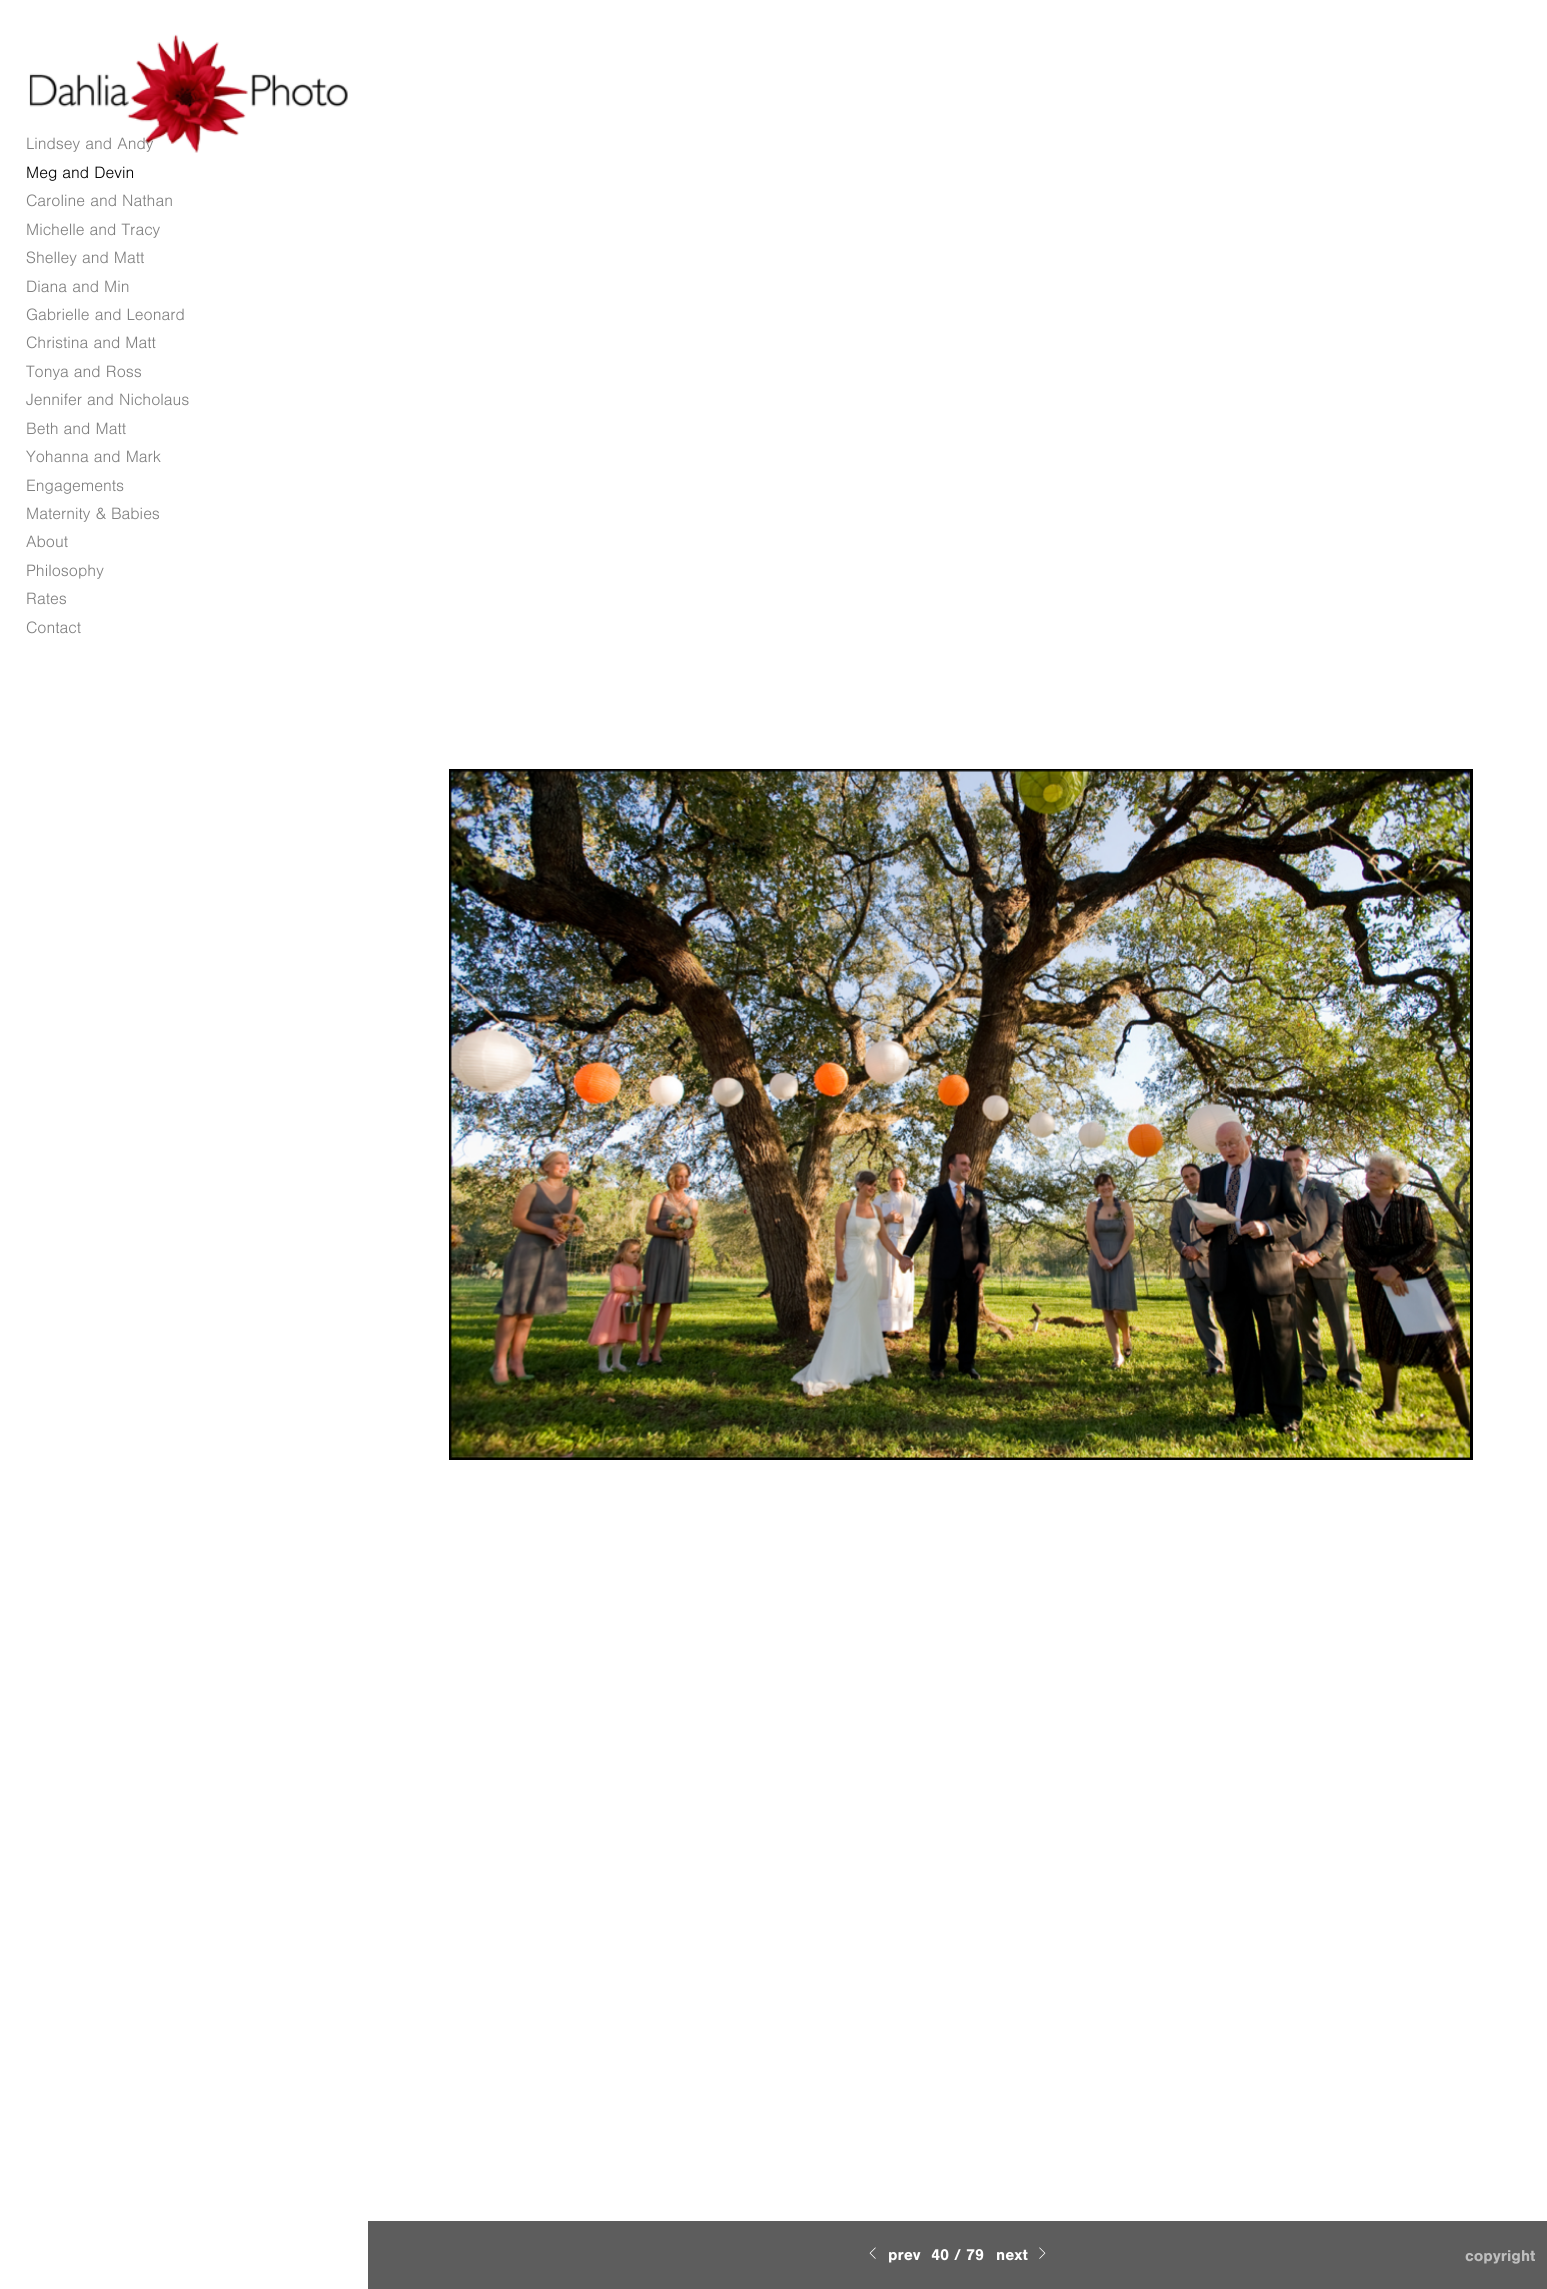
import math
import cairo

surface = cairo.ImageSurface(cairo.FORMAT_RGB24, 1547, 2289)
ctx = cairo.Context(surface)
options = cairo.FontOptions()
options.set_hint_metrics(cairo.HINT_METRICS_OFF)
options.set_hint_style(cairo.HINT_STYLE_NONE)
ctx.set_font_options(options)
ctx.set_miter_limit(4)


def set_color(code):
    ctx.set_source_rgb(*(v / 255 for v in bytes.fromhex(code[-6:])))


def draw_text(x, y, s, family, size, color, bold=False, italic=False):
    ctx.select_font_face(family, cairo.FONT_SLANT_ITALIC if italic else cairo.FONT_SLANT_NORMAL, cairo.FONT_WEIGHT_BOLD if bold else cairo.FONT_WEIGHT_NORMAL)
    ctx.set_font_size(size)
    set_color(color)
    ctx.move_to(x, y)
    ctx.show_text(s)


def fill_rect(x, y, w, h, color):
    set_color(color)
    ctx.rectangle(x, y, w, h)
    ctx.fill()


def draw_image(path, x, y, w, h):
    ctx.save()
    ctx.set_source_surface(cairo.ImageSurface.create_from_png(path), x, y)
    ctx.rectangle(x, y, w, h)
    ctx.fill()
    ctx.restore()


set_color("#ffffff")
ctx.paint()
draw_image("assets/img1.png", 29, 34, 319, 119)
draw_text(26, 149, "Lindsey and Andy", "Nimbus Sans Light", 17, "#808080")
draw_text(26, 178, "Meg and Devin", "Nimbus Sans Light", 17, "#020202")
draw_text(26, 206, "Caroline and Nathan", "Nimbus Sans Light", 17, "#808080")
draw_text(26, 235, "Michelle and Tracy", "Nimbus Sans Light", 17, "#808080")
draw_text(26, 263, "Shelley and Matt", "Nimbus Sans Light", 17, "#808080")
draw_text(26, 292, "Diana and Min", "Nimbus Sans Light", 17, "#808080")
draw_text(26, 320, "Gabrielle and Leonard", "Nimbus Sans Light", 17, "#808080")
draw_text(26, 348, "Christina and Matt", "Nimbus Sans Light", 17, "#808080")
draw_text(26, 377, "Tonya and Ross", "Nimbus Sans Light", 17, "#808080")
draw_text(26, 405, "Jennifer and Nicholaus", "Nimbus Sans Light", 17, "#808080")
draw_text(26, 434, "Beth and Matt", "Nimbus Sans Light", 17, "#808080")
draw_text(26, 462, "Yohanna and Mark", "Nimbus Sans Light", 17, "#808080")
draw_text(26, 491, "Engagements", "Nimbus Sans Light", 17, "#808080")
draw_text(26, 519, "Maternity & Babies", "Nimbus Sans Light", 17, "#808080")
draw_text(26, 547, "About", "Nimbus Sans Light", 17, "#808080")
draw_text(26, 576, "Philosophy", "Nimbus Sans Light", 17, "#808080")
draw_text(26, 604, "Rates", "Nimbus Sans Light", 17, "#808080")
draw_text(26, 633, "Contact", "Nimbus Sans Light", 17, "#808080")
ctx.rectangle(450.5, 770.5, 1021, 688)
set_color("#000000")
ctx.set_line_width(3)
ctx.stroke()
draw_image("assets/img2.png", 450, 770, 1020, 688)
fill_rect(368, 2221, 1179, 68, "#5d5d5d")
draw_image("assets/img3.png", 869, 2247, 7, 12)
draw_text(888, 2260, "prev", "Nimbus Sans", 16.25, "#ffffff", bold=True)
draw_text(931, 2260, "40 / 79", "Nimbus Sans", 16.25, "#ffffff", bold=True)
draw_text(996, 2260, "next", "Nimbus Sans", 16.25, "#ffffff", bold=True)
draw_image("assets/img4.png", 1039, 2247, 7, 12)
draw_text(1465, 2261, "copyright", "Nimbus Sans", 16.25, "#bebebe", bold=True)
surface.write_to_png("output.png")
